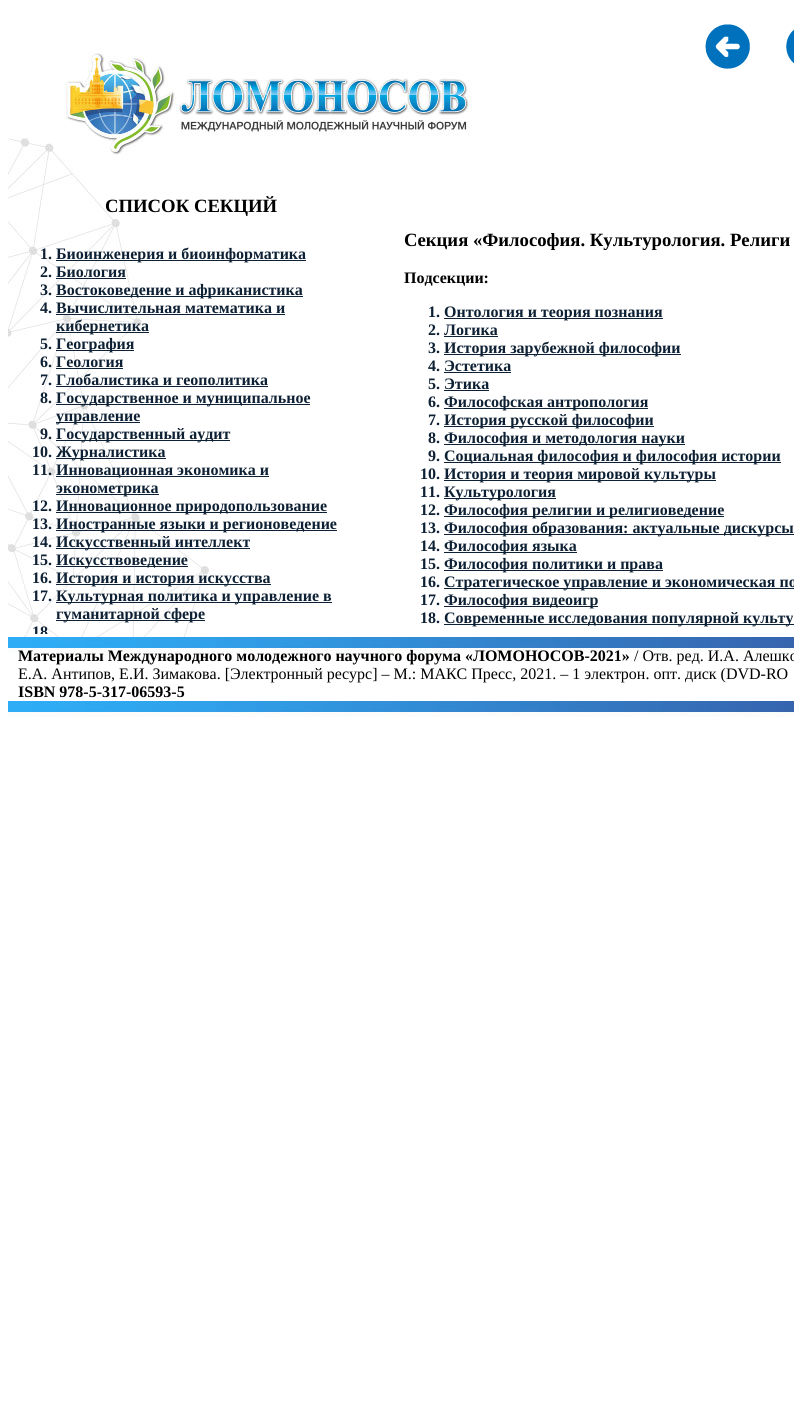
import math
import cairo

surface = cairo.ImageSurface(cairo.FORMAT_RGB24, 794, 1411)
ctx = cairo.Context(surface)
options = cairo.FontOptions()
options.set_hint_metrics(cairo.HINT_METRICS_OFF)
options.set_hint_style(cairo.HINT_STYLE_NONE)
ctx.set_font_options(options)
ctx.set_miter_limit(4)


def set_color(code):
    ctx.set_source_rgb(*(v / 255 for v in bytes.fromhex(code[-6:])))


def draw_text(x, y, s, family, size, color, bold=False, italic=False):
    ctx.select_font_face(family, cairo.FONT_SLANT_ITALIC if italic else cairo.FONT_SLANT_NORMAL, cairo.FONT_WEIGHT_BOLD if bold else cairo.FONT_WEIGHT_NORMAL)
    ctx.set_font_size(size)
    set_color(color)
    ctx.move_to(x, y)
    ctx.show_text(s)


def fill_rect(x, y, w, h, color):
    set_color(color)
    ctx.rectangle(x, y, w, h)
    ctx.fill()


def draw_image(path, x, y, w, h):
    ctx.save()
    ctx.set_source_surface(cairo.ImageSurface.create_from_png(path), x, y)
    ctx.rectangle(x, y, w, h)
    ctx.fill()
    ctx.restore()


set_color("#ffffff")
ctx.paint()
draw_image("assets/img1.png", 8, 49, 464, 588)
draw_image("assets/img2.png", 705, 24, 45, 45)
draw_image("assets/img3.png", 786, 29, 8, 35)
draw_text(105, 212, "СПИСОК СЕКЦИЙ", "Liberation Serif", 18.7, "#000000", bold=True)
draw_text(40, 259, "1.", "Liberation Serif", 16, "#0e2134", bold=True)
fill_rect(56, 260, 250, 1, "#0e2134")
draw_text(56, 259, "Биоинженерия и биоинформатика", "Liberation Serif", 16, "#0e2134", bold=True)
draw_text(40, 277, "2. Биология", "Liberation Serif", 16, "#0e2134", bold=True)
fill_rect(56, 278, 70, 1, "#0e2134")
draw_text(40, 295, "3.", "Liberation Serif", 16, "#0e2134", bold=True)
fill_rect(56, 296, 247, 1, "#0e2134")
draw_text(56, 295, "Востоковедение и африканистика", "Liberation Serif", 16, "#0e2134", bold=True)
draw_text(40, 313, "4. Вычислительная математика и", "Liberation Serif", 16, "#0e2134", bold=True)
fill_rect(56, 332, 93, 1, "#0e2134")
draw_text(56, 331, "кибернетика", "Liberation Serif", 16, "#0e2134", bold=True)
fill_rect(56, 314, 229, 1, "#0e2134")
draw_text(40, 349, "5.", "Liberation Serif", 16, "#0e2134", bold=True)
fill_rect(56, 350, 78, 1, "#0e2134")
draw_text(56, 349, "География", "Liberation Serif", 16, "#0e2134", bold=True)
draw_text(40, 367, "6. Геология", "Liberation Serif", 16, "#0e2134", bold=True)
fill_rect(56, 368, 67, 1, "#0e2134")
draw_text(40, 385, "7. Глобалистика и геополитика", "Liberation Serif", 16, "#0e2134", bold=True)
fill_rect(56, 386, 212, 1, "#0e2134")
draw_text(40, 403, "8.", "Liberation Serif", 16, "#0e2134", bold=True)
fill_rect(56, 404, 254, 1, "#0e2134")
draw_text(56, 403, "Государственное и муниципальное", "Liberation Serif", 16, "#0e2134", bold=True)
fill_rect(56, 422, 84, 1, "#0e2134")
draw_text(56, 421, "управление", "Liberation Serif", 16, "#0e2134", bold=True)
draw_text(40, 439, "9.", "Liberation Serif", 16, "#0e2134", bold=True)
fill_rect(56, 440, 174, 1, "#0e2134")
draw_text(56, 439, "Государственный аудит", "Liberation Serif", 16, "#0e2134", bold=True)
draw_text(32, 457, "10.", "Liberation Serif", 16, "#0e2134", bold=True)
fill_rect(56, 458, 110, 1, "#0e2134")
draw_text(56, 457, "Журналистика", "Liberation Serif", 16, "#0e2134", bold=True)
draw_text(32, 475, "11.", "Liberation Serif", 16, "#0e2134", bold=True)
fill_rect(56, 476, 213, 1, "#0e2134")
draw_text(56, 475, "Инновационная экономика и", "Liberation Serif", 16, "#0e2134", bold=True)
fill_rect(56, 494, 103, 1, "#0e2134")
draw_text(56, 493, "эконометрика", "Liberation Serif", 16, "#0e2134", bold=True)
draw_text(32, 511, "12.", "Liberation Serif", 16, "#0e2134", bold=True)
fill_rect(56, 512, 271, 1, "#0e2134")
draw_text(56, 511, "Инновационное природопользование", "Liberation Serif", 16, "#0e2134", bold=True)
draw_text(32, 529, "13.", "Liberation Serif", 16, "#0e2134", bold=True)
fill_rect(56, 530, 281, 1, "#0e2134")
draw_text(56, 529, "Иностранные языки и регионоведение", "Liberation Serif", 16, "#0e2134", bold=True)
draw_text(32, 547, "14.", "Liberation Serif", 16, "#0e2134", bold=True)
fill_rect(56, 548, 194, 1, "#0e2134")
draw_text(56, 547, "Искусственный интеллект", "Liberation Serif", 16, "#0e2134", bold=True)
draw_text(32, 565, "15.", "Liberation Serif", 16, "#0e2134", bold=True)
fill_rect(56, 566, 132, 1, "#0e2134")
draw_text(56, 565, "Искусствоведение", "Liberation Serif", 16, "#0e2134", bold=True)
draw_text(32, 583, "16.", "Liberation Serif", 16, "#0e2134", bold=True)
fill_rect(56, 584, 215, 1, "#0e2134")
draw_text(56, 583, "История и история искусства", "Liberation Serif", 16, "#0e2134", bold=True)
draw_text(32, 601, "17.", "Liberation Serif", 16, "#0e2134", bold=True)
fill_rect(56, 602, 276, 1, "#0e2134")
draw_text(56, 601, "Культурная политика и управление в", "Liberation Serif", 16, "#0e2134", bold=True)
fill_rect(56, 620, 149, 1, "#0e2134")
draw_text(56, 619, "гуманитарной сфере", "Liberation Serif", 16, "#0e2134", bold=True)
ctx.save()
ctx.rectangle(11, 224, 360, 410)
ctx.clip()
draw_text(32, 637, "18", "Liberation Serif", 16, "#0e2134", bold=True)
ctx.restore()
draw_text(404, 246, "Секция «Философия. Культурология. Религи", "Liberation Serif", 18.7, "#000000", bold=True)
draw_text(404, 283, "Подсекции:", "Liberation Serif", 16, "#000000", bold=True)
draw_text(428, 317, "1.", "Liberation Serif", 16, "#0e2134", bold=True)
fill_rect(444, 318, 219, 1, "#0e2134")
draw_text(444, 317, "Онтология и теория познания", "Liberation Serif", 16, "#0e2134", bold=True)
draw_text(428, 335, "2. Логика", "Liberation Serif", 16, "#0e2134", bold=True)
fill_rect(444, 336, 54, 1, "#0e2134")
draw_text(428, 353, "3.", "Liberation Serif", 16, "#0e2134", bold=True)
fill_rect(444, 354, 237, 1, "#0e2134")
draw_text(444, 353, "История зарубежной философии", "Liberation Serif", 16, "#0e2134", bold=True)
draw_text(428, 371, "4. Эстетика", "Liberation Serif", 16, "#0e2134", bold=True)
fill_rect(444, 372, 67, 1, "#0e2134")
draw_text(428, 389, "5. Этика", "Liberation Serif", 16, "#0e2134", bold=True)
fill_rect(444, 390, 45, 1, "#0e2134")
draw_text(428, 407, "6.", "Liberation Serif", 16, "#0e2134", bold=True)
fill_rect(444, 408, 204, 1, "#0e2134")
draw_text(444, 407, "Философская антропология", "Liberation Serif", 16, "#0e2134", bold=True)
draw_text(428, 425, "7.", "Liberation Serif", 16, "#0e2134", bold=True)
fill_rect(444, 426, 210, 1, "#0e2134")
draw_text(444, 425, "История русской философии", "Liberation Serif", 16, "#0e2134", bold=True)
draw_text(428, 443, "8.", "Liberation Serif", 16, "#0e2134", bold=True)
fill_rect(444, 444, 241, 1, "#0e2134")
draw_text(444, 443, "Философия и методология науки", "Liberation Serif", 16, "#0e2134", bold=True)
draw_text(428, 461, "9.", "Liberation Serif", 16, "#0e2134", bold=True)
fill_rect(444, 462, 337, 1, "#0e2134")
draw_text(444, 461, "Социальная философия и философия истории", "Liberation Serif", 16, "#0e2134", bold=True)
draw_text(420, 479, "10.", "Liberation Serif", 16, "#0e2134", bold=True)
fill_rect(444, 480, 272, 1, "#0e2134")
draw_text(444, 479, "История и теория мировой культуры", "Liberation Serif", 16, "#0e2134", bold=True)
draw_text(420, 497, "11.", "Liberation Serif", 16, "#0e2134", bold=True)
fill_rect(444, 498, 112, 1, "#0e2134")
draw_text(444, 497, "Культурология", "Liberation Serif", 16, "#0e2134", bold=True)
draw_text(420, 515, "12.", "Liberation Serif", 16, "#0e2134", bold=True)
fill_rect(444, 516, 280, 1, "#0e2134")
draw_text(444, 515, "Философия религии и религиоведение", "Liberation Serif", 16, "#0e2134", bold=True)
draw_text(420, 533, "13.", "Liberation Serif", 16, "#0e2134", bold=True)
fill_rect(444, 534, 350, 1, "#0e2134")
draw_text(444, 533, "Философия образования: актуальные дискурсы", "Liberation Serif", 16, "#0e2134", bold=True)
draw_text(420, 551, "14.", "Liberation Serif", 16, "#0e2134", bold=True)
fill_rect(444, 552, 133, 1, "#0e2134")
draw_text(444, 551, "Философия языка", "Liberation Serif", 16, "#0e2134", bold=True)
draw_text(420, 569, "15.", "Liberation Serif", 16, "#0e2134", bold=True)
fill_rect(444, 570, 219, 1, "#0e2134")
draw_text(444, 569, "Философия политики и права", "Liberation Serif", 16, "#0e2134", bold=True)
draw_text(420, 587, "16.", "Liberation Serif", 16, "#0e2134", bold=True)
fill_rect(444, 588, 350, 1, "#0e2134")
draw_text(444, 587, "Стратегическое управление и экономическая по", "Liberation Serif", 16, "#0e2134", bold=True)
draw_text(420, 605, "17.", "Liberation Serif", 16, "#0e2134", bold=True)
fill_rect(444, 606, 154, 1, "#0e2134")
draw_text(444, 605, "Философия видеоигр", "Liberation Serif", 16, "#0e2134", bold=True)
draw_text(420, 623, "18.", "Liberation Serif", 16, "#0e2134", bold=True)
fill_rect(444, 624, 350, 1, "#0e2134")
draw_text(444, 623, "Современные исследования популярной культу", "Liberation Serif", 16, "#0e2134", bold=True)
draw_image("assets/img4.png", 8, 637, 786, 16)
draw_text(18, 661, "Материалы Международного молодежного научного форума «ЛОМОНОСОВ-2021»", "Liberation Serif", 16, "#000000", bold=True)
draw_text(634, 661, "/ Отв. ред. И.А. Алешко", "Liberation Serif", 16, "#000000")
draw_text(18, 679, "Е.А. Антипов, Е.И. Зимакова. [Электронный ресурс] – М.: МАКС Пресс, 2021. – 1 электрон. опт. диск (DVD-RO", "Liberation Serif", 16, "#000000")
draw_text(18, 697, "ISBN 978-5-317-06593-5", "Liberation Serif", 16, "#000000", bold=True)
draw_image("assets/img4.png", 8, 701, 786, 16)
surface.write_to_png("output.png")
